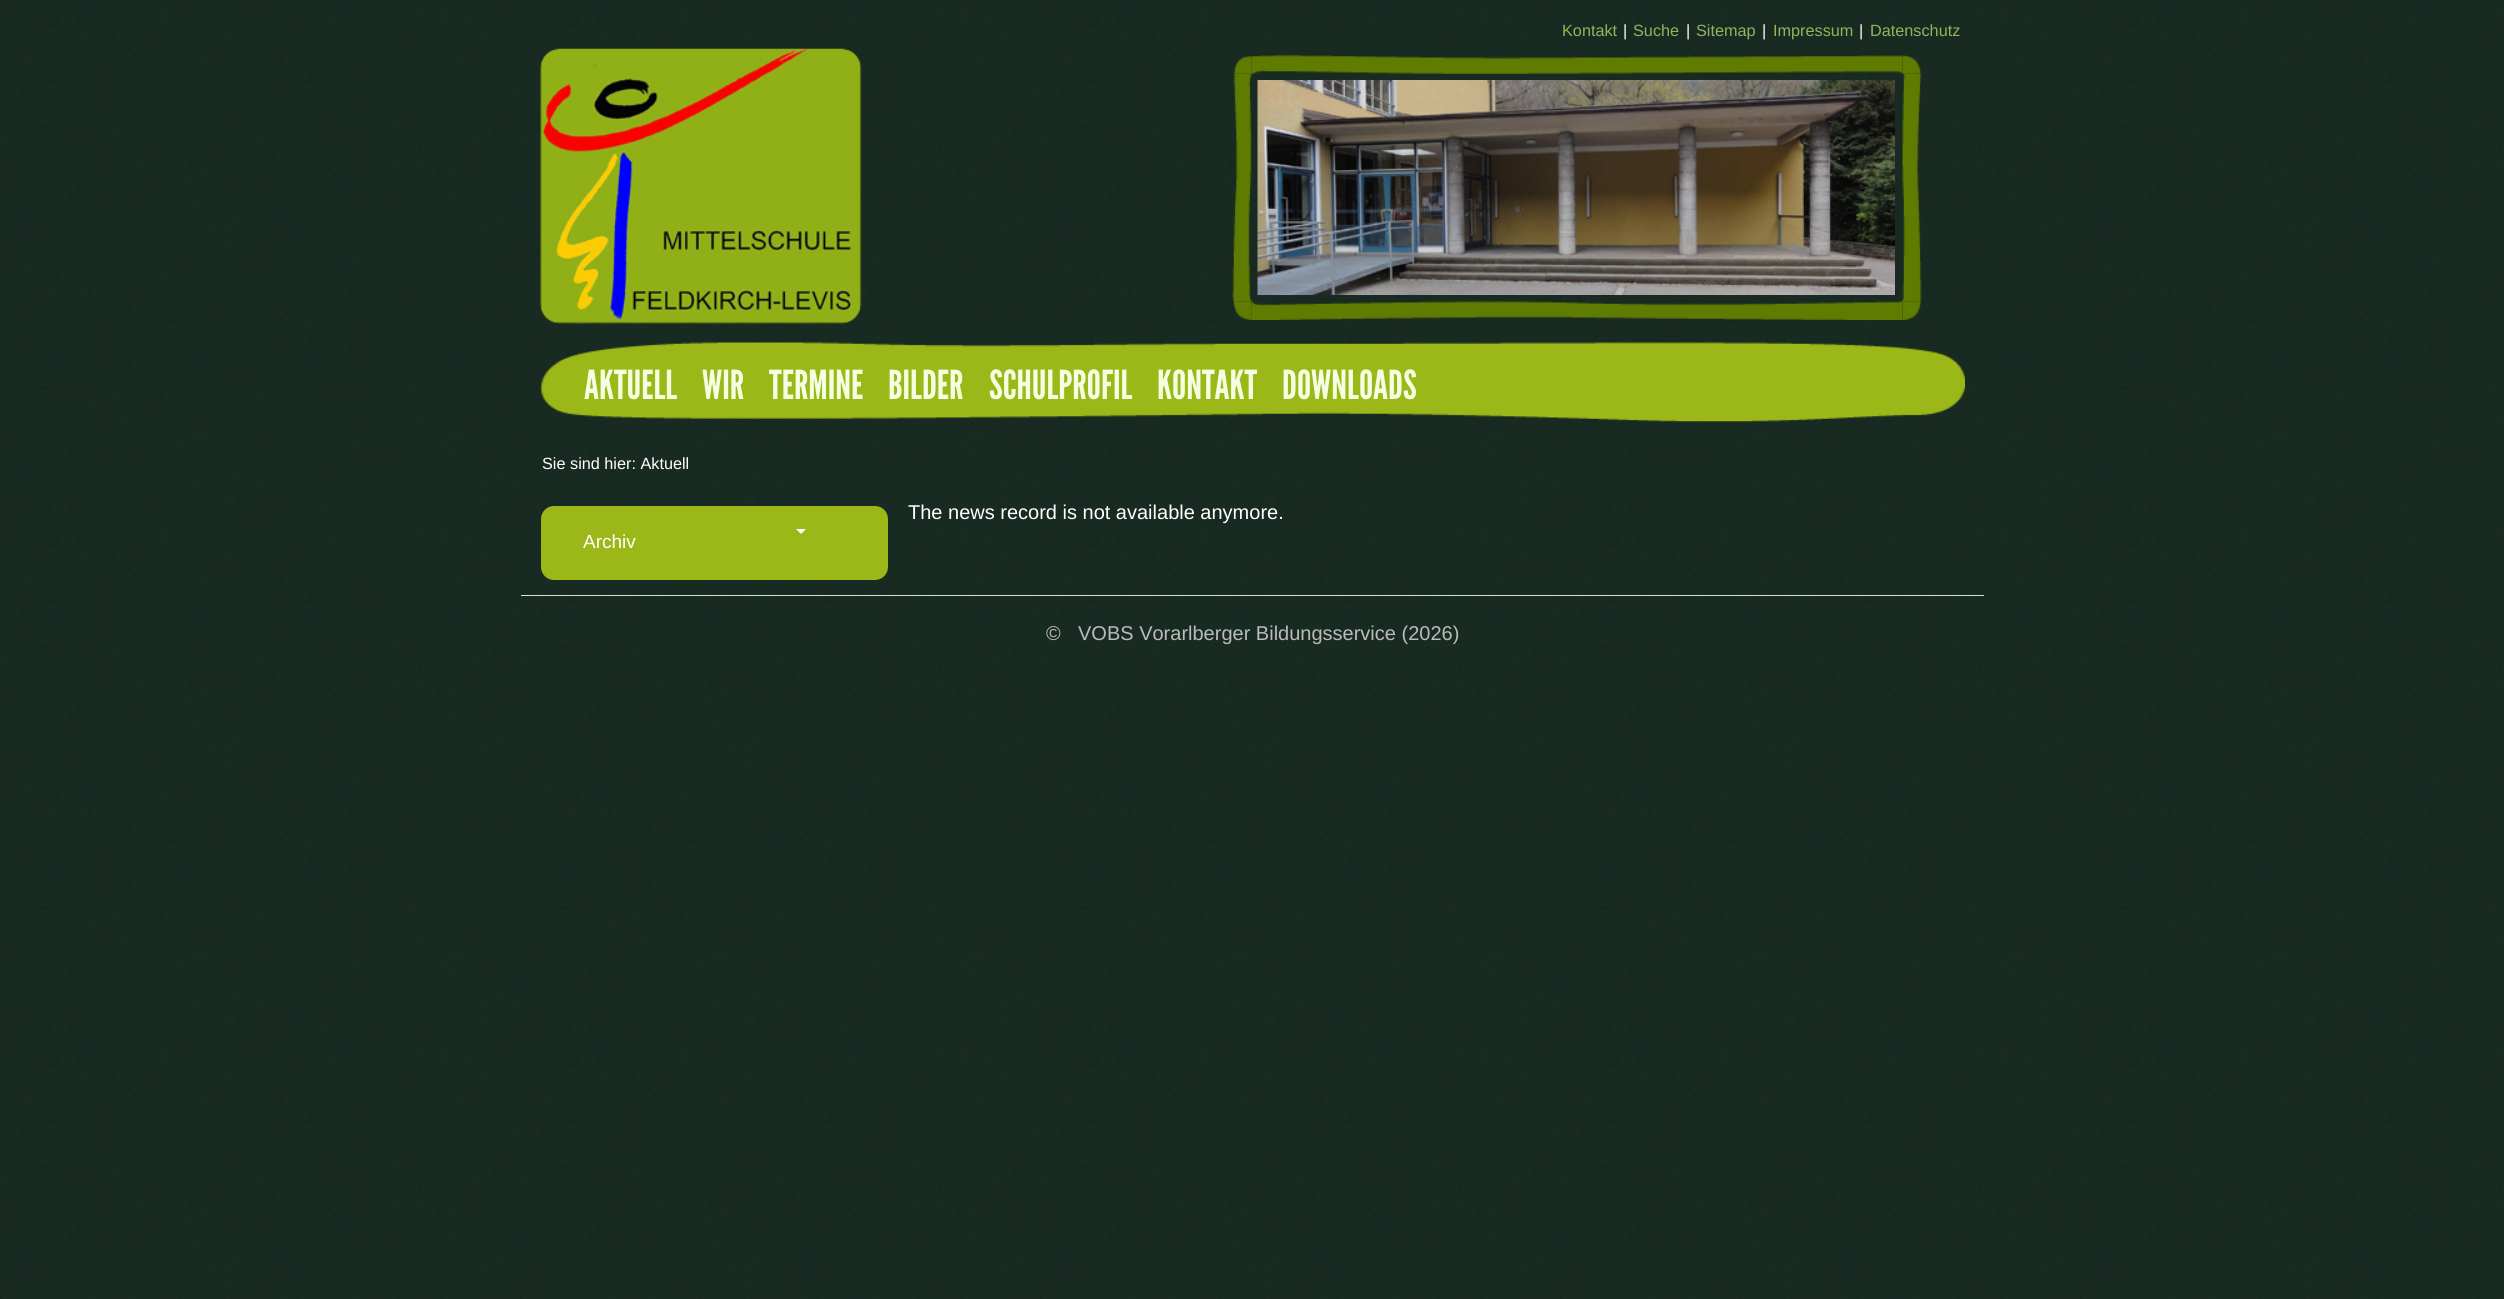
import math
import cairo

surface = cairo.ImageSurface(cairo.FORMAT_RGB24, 2504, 1299)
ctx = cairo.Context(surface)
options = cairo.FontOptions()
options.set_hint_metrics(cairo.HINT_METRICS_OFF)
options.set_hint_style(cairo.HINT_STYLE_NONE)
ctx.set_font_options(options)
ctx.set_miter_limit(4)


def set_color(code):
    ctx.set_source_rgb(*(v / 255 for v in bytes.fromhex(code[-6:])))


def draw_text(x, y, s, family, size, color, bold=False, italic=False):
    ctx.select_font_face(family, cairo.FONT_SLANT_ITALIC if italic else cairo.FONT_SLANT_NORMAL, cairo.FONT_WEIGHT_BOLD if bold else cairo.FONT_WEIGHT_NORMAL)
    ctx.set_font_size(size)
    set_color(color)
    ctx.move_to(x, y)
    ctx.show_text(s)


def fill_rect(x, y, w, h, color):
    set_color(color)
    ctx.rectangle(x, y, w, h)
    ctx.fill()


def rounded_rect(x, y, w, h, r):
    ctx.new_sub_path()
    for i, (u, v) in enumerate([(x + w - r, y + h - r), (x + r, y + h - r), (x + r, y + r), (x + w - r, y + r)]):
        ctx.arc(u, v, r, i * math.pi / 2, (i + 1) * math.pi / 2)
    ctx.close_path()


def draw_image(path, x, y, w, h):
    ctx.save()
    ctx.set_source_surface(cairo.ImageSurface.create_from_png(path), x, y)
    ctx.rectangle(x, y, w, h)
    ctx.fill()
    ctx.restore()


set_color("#ffffff")
ctx.paint()
draw_image("assets/img1.png", 0, 0, 2504, 1299)
draw_text(1562, 36, "Kontakt", "Liberation Sans", 16.25, "#92b45c")
draw_text(1623, 36, "|", "Liberation Sans", 16.25, "#ffffff")
draw_text(1633, 36, "Suche", "Liberation Sans", 16.25, "#92b45c")
draw_text(1686, 36, "|", "Liberation Sans", 16.25, "#ffffff")
draw_text(1696, 36, "Sitemap", "Liberation Sans", 16.25, "#92b45c")
draw_text(1762, 36, "|", "Liberation Sans", 16.25, "#ffffff")
draw_text(1773, 36, "Impressum", "Liberation Sans", 16.25, "#92b45c")
draw_text(1859, 36, "|", "Liberation Sans", 16.25, "#ffffff")
draw_text(1870, 36, "Datenschutz", "Liberation Sans", 16.25, "#92b45c")
draw_image("assets/img2.png", 540, 48, 322, 276)
draw_image("assets/img3.png", 1232, 55, 690, 265)
draw_image("assets/img4.png", 1257, 80, 638, 215)
draw_image("assets/img5.png", 540, 342, 1425, 80)
draw_text(584, 399, "AKTUELL", "League Gothic", 40, "#f3ffe1")
draw_text(702, 399, "WIR", "League Gothic", 40, "#f3ffe1")
draw_text(769, 399, "TERMINE", "League Gothic", 40, "#f3ffe1")
draw_text(888, 399, "BILDER", "League Gothic", 40, "#f3ffe1")
draw_text(989, 399, "SCHULPROFIL", "League Gothic", 40, "#f3ffe1")
draw_text(1157, 399, "KONTAKT", "League Gothic", 40, "#f3ffe1")
draw_text(1282, 399, "DOWNLOADS", "League Gothic", 40, "#f3ffe1")
draw_text(542, 469, "Sie sind hier: Aktuell", "Liberation Sans", 16.25, "#ffffff")
draw_text(908, 519, "The news record is not available anymore.", "Liberation Sans", 20, "#ffffff")
set_color("#9bb718")
rounded_rect(541, 506, 347, 74, 13)
ctx.fill()
set_color("#ffffff")
ctx.new_path()
ctx.move_to(796, 529)
ctx.line_to(806, 529)
ctx.line_to(801, 534)
ctx.close_path()
ctx.fill()
draw_text(583, 548, "Archiv", "Liberation Sans", 19, "#ffffff")
fill_rect(521, 595, 1463, 1, "#dddddd")
draw_text(1046, 640, "©", "Liberation Sans", 20, "#bbbbbb")
draw_text(1078, 640, "VOBS Vorarlberger Bildungsservice (2026)", "Liberation Sans", 20, "#bbbbbb")
surface.write_to_png("output.png")
